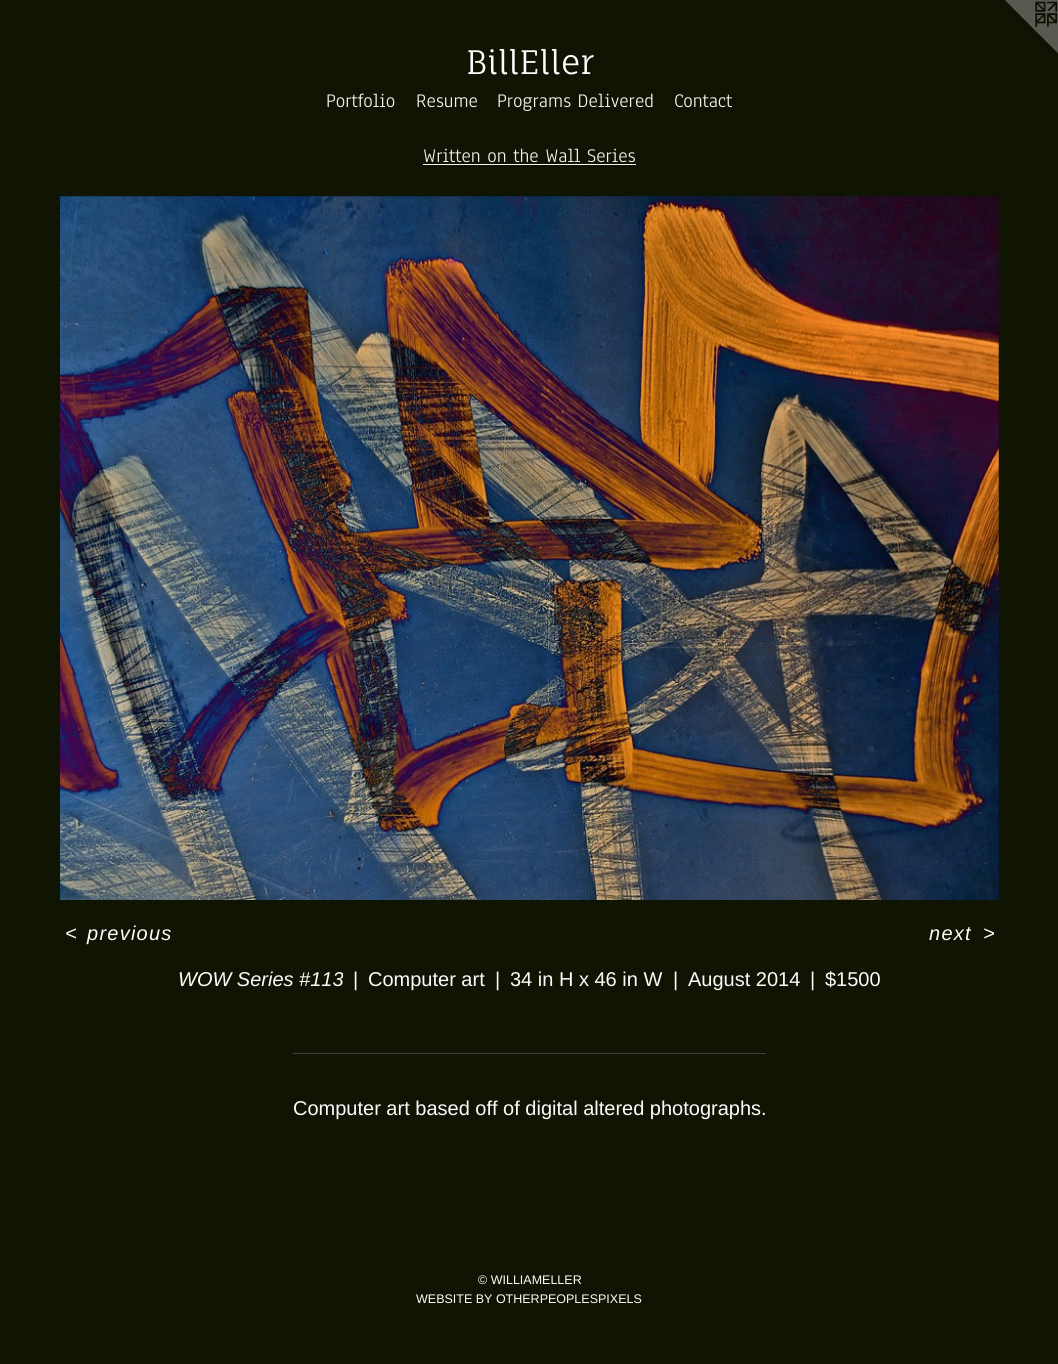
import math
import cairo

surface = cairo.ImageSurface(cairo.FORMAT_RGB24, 1058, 1364)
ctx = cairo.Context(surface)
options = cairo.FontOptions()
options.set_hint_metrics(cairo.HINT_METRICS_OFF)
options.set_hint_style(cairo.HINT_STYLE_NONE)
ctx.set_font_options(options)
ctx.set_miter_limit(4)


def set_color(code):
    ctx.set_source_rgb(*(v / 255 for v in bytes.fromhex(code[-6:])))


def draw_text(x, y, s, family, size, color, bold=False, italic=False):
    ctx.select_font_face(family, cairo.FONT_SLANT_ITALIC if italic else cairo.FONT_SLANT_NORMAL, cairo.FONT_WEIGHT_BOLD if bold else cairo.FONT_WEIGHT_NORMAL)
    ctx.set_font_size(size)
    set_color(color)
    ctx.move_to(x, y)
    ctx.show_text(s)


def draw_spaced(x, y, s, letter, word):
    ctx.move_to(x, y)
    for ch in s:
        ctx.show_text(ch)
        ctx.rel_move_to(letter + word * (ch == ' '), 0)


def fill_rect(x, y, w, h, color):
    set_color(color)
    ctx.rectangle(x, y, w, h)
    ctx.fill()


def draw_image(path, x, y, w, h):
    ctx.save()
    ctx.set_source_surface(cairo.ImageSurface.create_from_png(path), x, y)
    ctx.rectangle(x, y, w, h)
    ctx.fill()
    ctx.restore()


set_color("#0f1403")
ctx.paint()
draw_image("assets/img1.png", 1005, 0, 53, 53)
draw_text(466, 74, "BillEller", "Fauna One", 32.5, "#fefbfb")
draw_text(326, 107, "Portfolio", "Anaheim", 20, "#faf0f0")
draw_text(416, 107, "Resume", "Anaheim", 20, "#faf0f0")
draw_text(497, 107, "Programs Delivered", "Anaheim", 20, "#faf0f0")
draw_text(674, 107, "Contact", "Anaheim", 20, "#faf0f0")
draw_text(423, 162, "Written on the Wall Series", "Anaheim", 20, "#faf0f0")
fill_rect(423, 164, 213, 1, "#faf0f0")
draw_image("assets/img2.png", 60, 196, 939, 704)
ctx.select_font_face("Liberation Sans", cairo.FONT_SLANT_ITALIC)
set_color("#fefbfb")
draw_spaced(65, 940, "<", 1.25, 0)
draw_spaced(87, 940, "previous", 1.25, 0)
draw_spaced(929, 940, "next", 1.25, 0)
draw_spaced(983, 940, ">", 1.25, 0)
draw_text(178, 986, "WOW Series #113", "Liberation Sans", 20, "#fefbfb", italic=True)
draw_text(353, 986, "|", "Liberation Sans", 20, "#fefbfb")
draw_text(368, 986, "Computer art", "Liberation Sans", 20, "#fefbfb")
draw_text(495, 986, "|", "Liberation Sans", 20, "#fefbfb")
draw_text(510, 986, "34 in H x 46 in W", "Liberation Sans", 20, "#fefbfb")
draw_text(673, 986, "|", "Liberation Sans", 20, "#fefbfb")
draw_text(688, 986, "August 2014", "Liberation Sans", 20, "#fefbfb")
draw_text(810, 986, "|", "Liberation Sans", 20, "#fefbfb")
draw_text(825, 986, "$1500", "Liberation Sans", 20, "#fefbfb")
fill_rect(293, 1053, 473, 1, "#3f4335")
draw_text(293, 1115, "Computer art based off of digital altered photographs.", "Liberation Sans", 20, "#fefbfb")
draw_text(478, 1284, "© WILLIAMELLER", "Liberation Sans", 12.5, "#fefbfb")
draw_text(416, 1303, "WEBSITE BY OTHERPEOPLESPIXELS", "Liberation Sans", 12.5, "#fefbfb")
surface.write_to_png("output.png")
